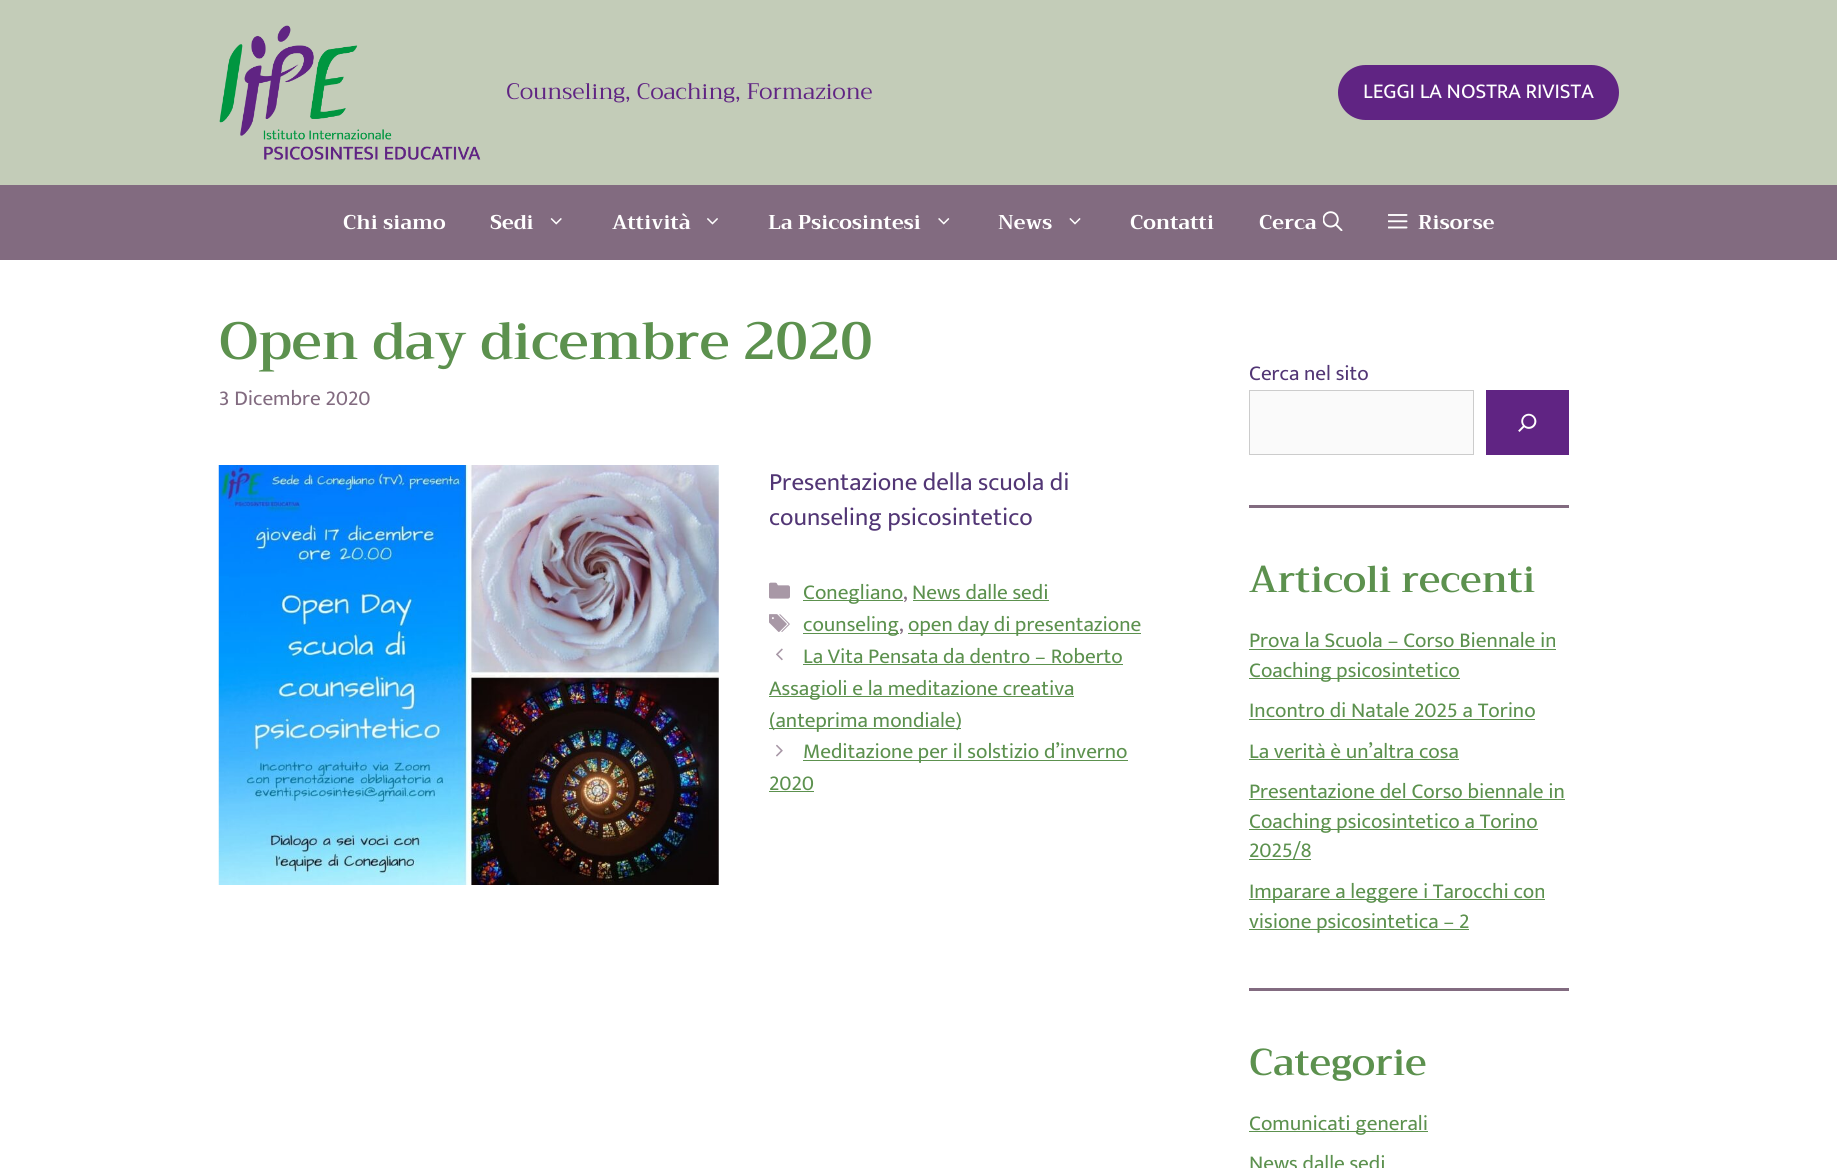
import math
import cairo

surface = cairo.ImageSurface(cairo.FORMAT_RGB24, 1837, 1168)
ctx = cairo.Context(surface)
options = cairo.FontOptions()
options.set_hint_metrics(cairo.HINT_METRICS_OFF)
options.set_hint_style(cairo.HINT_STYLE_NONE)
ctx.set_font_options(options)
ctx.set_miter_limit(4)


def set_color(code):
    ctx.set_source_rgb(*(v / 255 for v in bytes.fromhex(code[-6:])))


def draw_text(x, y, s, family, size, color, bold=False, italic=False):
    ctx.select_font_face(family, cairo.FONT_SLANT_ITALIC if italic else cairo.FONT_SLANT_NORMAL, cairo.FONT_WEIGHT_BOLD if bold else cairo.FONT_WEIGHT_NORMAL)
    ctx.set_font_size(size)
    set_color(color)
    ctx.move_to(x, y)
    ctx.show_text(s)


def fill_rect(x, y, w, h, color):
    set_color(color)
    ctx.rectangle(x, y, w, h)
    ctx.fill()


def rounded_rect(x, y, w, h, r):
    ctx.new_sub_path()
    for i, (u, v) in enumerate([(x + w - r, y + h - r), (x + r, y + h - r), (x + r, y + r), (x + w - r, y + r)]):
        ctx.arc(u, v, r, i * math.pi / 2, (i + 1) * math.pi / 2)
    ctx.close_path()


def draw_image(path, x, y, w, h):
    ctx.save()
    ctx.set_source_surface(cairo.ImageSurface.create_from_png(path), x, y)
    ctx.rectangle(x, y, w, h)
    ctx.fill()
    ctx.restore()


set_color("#ffffff")
ctx.paint()
fill_rect(0, 0, 1837, 185, "#c3ccb8")
draw_image("assets/img1.png", 219, 25, 262, 135)
draw_text(506, 99, "Counseling, Coaching, Formazione", "Trirong", 22.5, "#602483")
rounded_rect(1338, 65, 281, 55, 27.5)
ctx.fill()
draw_text(1363, 98, "LEGGI LA NOSTRA RIVISTA", "Ek Mukta", 21.25, "#ffffff")
fill_rect(0, 185, 1837, 75, "#826b80")
draw_text(343, 229, "Chi siamo", "Trirong", 20, "#ffffff", bold=True)
draw_text(490, 229, "Sedi", "Trirong", 20, "#ffffff", bold=True)
draw_image("assets/img2.png", 550, 218, 12, 7)
draw_text(612, 229, "Attività", "Trirong", 20, "#ffffff", bold=True)
draw_image("assets/img3.png", 707, 218, 11, 7)
draw_text(768, 229, "La Psicosintesi", "Trirong", 20, "#ffffff", bold=True)
draw_image("assets/img4.png", 938, 218, 12, 7)
draw_text(998, 229, "News", "Trirong", 20, "#ffffff", bold=True)
draw_image("assets/img5.png", 1069, 218, 12, 7)
draw_text(1130, 229, "Contatti", "Trirong", 20, "#ffffff", bold=True)
draw_text(1259, 229, "Cerca", "Trirong", 20, "#ffffff", bold=True)
draw_image("assets/img6.png", 1323, 211, 20, 20)
draw_image("assets/img7.png", 1388, 214, 20, 15)
draw_text(1418, 229, "Risorse", "Trirong", 20, "#ffffff", bold=True)
draw_text(219, 359, "Open day dicembre 2020", "Trirong SemiBold", 52.5, "#5c914e")
draw_text(219, 405, "3 Dicembre 2020", "Ek Mukta", 21.25, "#826b80")
draw_image("assets/img8.png", 218, 465, 501, 420)
draw_text(769, 490, "Presentazione della scuola di", "Ek Mukta", 25, "#523675")
draw_text(769, 525, "counseling psicosintetico", "Ek Mukta", 25, "#523675")
draw_image("assets/img9.png", 769, 582, 21, 17)
fill_rect(803, 600, 100, 1, "#5c914e")
draw_text(803, 599, "Conegliano", "Ek Mukta", 21.25, "#5c914e")
draw_text(903, 599, ",", "Ek Mukta", 21.25, "#826b80")
draw_text(912, 599, "News dalle sedi", "Ek Mukta", 21.25, "#5c914e")
fill_rect(913, 600, 136, 1, "#5c914e")
draw_image("assets/img10.png", 769, 614, 21, 18)
fill_rect(803, 633, 96, 1, "#5c914e")
draw_text(803, 631, "counseling", "Ek Mukta", 21.25, "#5c914e")
draw_text(899, 631, ",", "Ek Mukta", 21.25, "#826b80")
fill_rect(908, 633, 233, 1, "#5c914e")
draw_text(908, 631, "open day di presentazione", "Ek Mukta", 21.25, "#5c914e")
draw_image("assets/img11.png", 776, 648, 7, 13)
draw_text(803, 663, "La Vita Pensata da dentro – Roberto", "Ek Mukta", 21.25, "#5c914e")
fill_rect(803, 664, 320, 1, "#5c914e")
fill_rect(769, 696, 305, 1, "#5c914e")
draw_text(769, 695, "Assagioli e la meditazione creativa", "Ek Mukta", 21.25, "#5c914e")
fill_rect(769, 728, 192, 1, "#5c914e")
draw_text(769, 727, "(anteprima mondiale)", "Ek Mukta", 21.25, "#5c914e")
draw_image("assets/img12.png", 776, 744, 7, 13)
fill_rect(803, 760, 325, 1, "#5c914e")
draw_text(803, 758, "Meditazione per il solstizio d’inverno", "Ek Mukta", 21.25, "#5c914e")
draw_text(769, 790, "2020", "Ek Mukta", 21.25, "#5c914e")
fill_rect(769, 791, 45, 1, "#5c914e")
draw_text(1249, 380, "Cerca nel sito", "Ek Mukta", 21.25, "#523675")
set_color("#fafafa")
ctx.rectangle(1249.5, 390.5, 224, 64)
ctx.fill_preserve()
set_color("#cccccc")
ctx.set_line_width(1)
ctx.stroke()
fill_rect(1486, 390, 83, 65, "#602483")
draw_image("assets/img13.png", 1518, 413, 19, 19)
fill_rect(1249, 505, 320, 3, "#826b80")
draw_text(1249, 592, "Articoli recenti", "Trirong SemiBold", 37.5, "#5c914e")
draw_text(1249, 647, "Prova la Scuola – Corso Biennale in", "Ek Mukta", 21.25, "#5c914e")
fill_rect(1249, 649, 307, 1, "#5c914e")
fill_rect(1249, 678, 211, 1, "#5c914e")
draw_text(1249, 677, "Coaching psicosintetico", "Ek Mukta", 21.25, "#5c914e")
draw_text(1249, 717, "Incontro di Natale 2025 a Torino", "Ek Mukta", 21.25, "#5c914e")
fill_rect(1249, 719, 286, 1, "#5c914e")
draw_text(1249, 758, "La verità è un’altra cosa", "Ek Mukta", 21.25, "#5c914e")
fill_rect(1249, 759, 210, 1, "#5c914e")
draw_text(1249, 798, "Presentazione del Corso biennale in", "Ek Mukta", 21.25, "#5c914e")
fill_rect(1249, 799, 316, 1, "#5c914e")
fill_rect(1249, 829, 289, 1, "#5c914e")
draw_text(1249, 828, "Coaching psicosintetico a Torino", "Ek Mukta", 21.25, "#5c914e")
fill_rect(1249, 859, 62, 1, "#5c914e")
draw_text(1249, 857, "2025/8", "Ek Mukta", 21.25, "#5c914e")
fill_rect(1249, 899, 296, 1, "#5c914e")
draw_text(1249, 898, "Imparare a leggere i Tarocchi con", "Ek Mukta", 21.25, "#5c914e")
fill_rect(1249, 929, 220, 1, "#5c914e")
draw_text(1249, 928, "visione psicosintetica – 2", "Ek Mukta", 21.25, "#5c914e")
fill_rect(1249, 988, 320, 3, "#826b80")
draw_text(1249, 1075, "Categorie", "Trirong SemiBold", 37.5, "#5c914e")
fill_rect(1249, 1131, 179, 1, "#5c914e")
draw_text(1249, 1130, "Comunicati generali", "Ek Mukta", 21.25, "#5c914e")
draw_text(1249, 1170, "News dalle sedi", "Ek Mukta", 21.25, "#5c914e")
surface.write_to_png("output.png")
